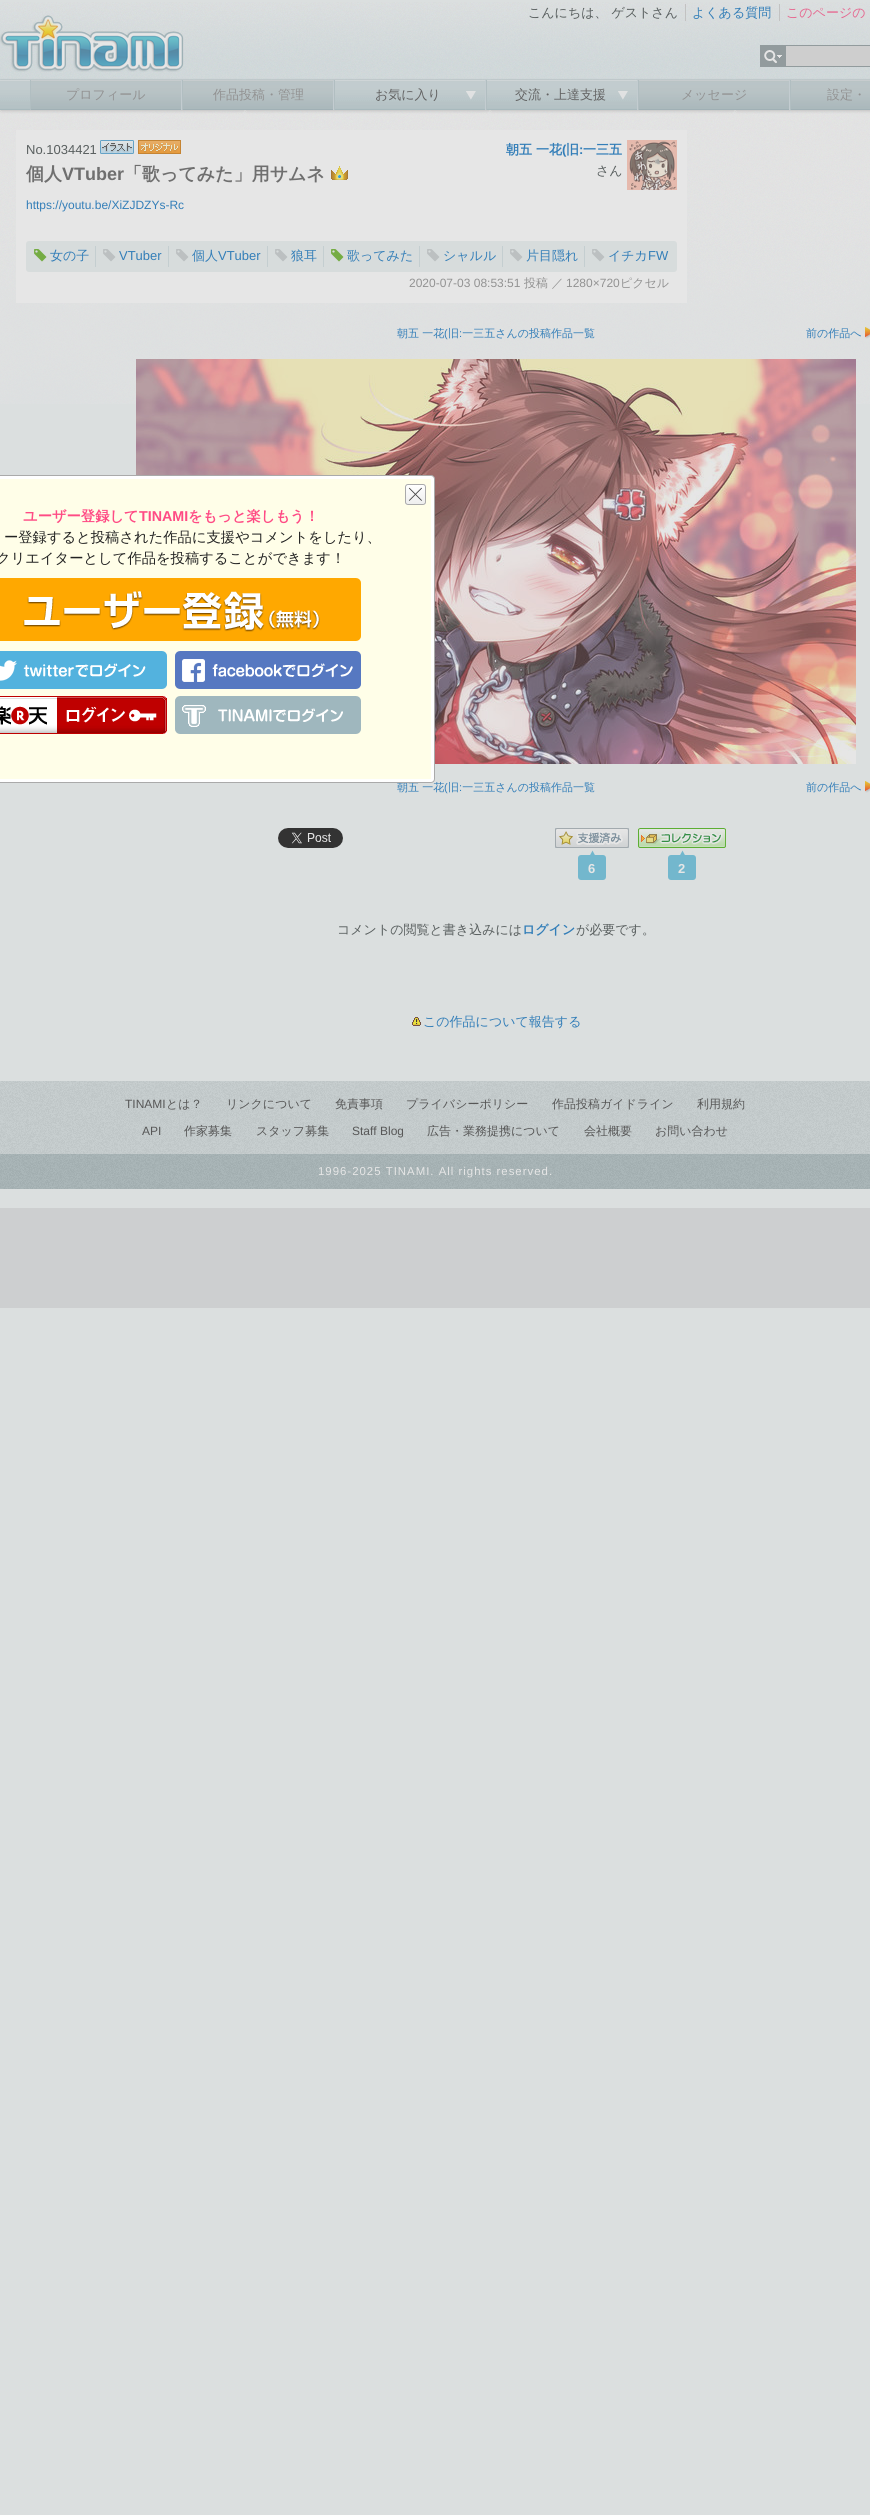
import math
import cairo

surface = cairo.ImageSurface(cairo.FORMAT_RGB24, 870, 2515)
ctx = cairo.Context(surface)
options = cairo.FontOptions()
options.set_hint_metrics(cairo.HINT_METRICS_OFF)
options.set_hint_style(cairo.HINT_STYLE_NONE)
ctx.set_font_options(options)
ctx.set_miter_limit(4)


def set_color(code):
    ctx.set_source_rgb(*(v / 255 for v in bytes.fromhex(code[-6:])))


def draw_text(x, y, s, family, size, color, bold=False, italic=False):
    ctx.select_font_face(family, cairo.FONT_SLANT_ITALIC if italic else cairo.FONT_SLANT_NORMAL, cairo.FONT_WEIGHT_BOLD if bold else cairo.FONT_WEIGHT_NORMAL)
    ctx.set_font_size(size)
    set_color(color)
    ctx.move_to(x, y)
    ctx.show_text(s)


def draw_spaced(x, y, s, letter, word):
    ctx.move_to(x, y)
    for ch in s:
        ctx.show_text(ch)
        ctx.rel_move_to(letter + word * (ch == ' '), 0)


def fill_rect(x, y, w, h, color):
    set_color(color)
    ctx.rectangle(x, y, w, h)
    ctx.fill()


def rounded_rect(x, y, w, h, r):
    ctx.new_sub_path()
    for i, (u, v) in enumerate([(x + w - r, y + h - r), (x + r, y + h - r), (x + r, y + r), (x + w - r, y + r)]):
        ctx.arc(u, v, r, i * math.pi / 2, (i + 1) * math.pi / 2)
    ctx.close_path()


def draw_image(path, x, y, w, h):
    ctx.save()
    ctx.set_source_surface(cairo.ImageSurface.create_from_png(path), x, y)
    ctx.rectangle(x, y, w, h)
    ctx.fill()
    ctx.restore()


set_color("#dbdfdf")
ctx.paint()
draw_image("assets/img1.png", 0, 2, 870, 402)
draw_text(528, 17, "こんにちは、 ゲストさん", "WenQuanYi Zen Hei Medium", 13, "#595f5f")
draw_text(692, 17, "よくある質問", "WenQuanYi Zen Hei Medium", 13, "#337eb8")
fill_rect(685, 4, 1, 17, "#c2c2c2")
draw_text(786, 17, "このページの", "WenQuanYi Zen Hei Medium", 13, "#e66890")
fill_rect(779, 4, 1, 17, "#c2c2c2")
draw_image("assets/img2.png", 0, 15, 184, 57)
draw_image("assets/img3.png", 760, 45, 25, 22)
set_color("#cecece")
ctx.rectangle(785.5, 45.5, 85, 21)
ctx.fill_preserve()
set_color("#929b9d")
ctx.set_line_width(1)
ctx.stroke()
draw_image("assets/img4.png", 31, 80, 150, 30)
fill_rect(181, 80, 1, 30, "#c3ccd0")
fill_rect(30, 80, 1, 30, "#b1bec1")
draw_text(66, 99, "プロフィール", "WenQuanYi Zen Hei Medium", 13, "#929292")
draw_image("assets/img4.png", 183, 80, 150, 30)
fill_rect(333, 80, 1, 30, "#c3ccd0")
fill_rect(182, 80, 1, 30, "#b1bec1")
draw_text(213, 99, "作品投稿・管理", "WenQuanYi Zen Hei Medium", 13, "#929292")
draw_image("assets/img5.png", 466, 91, 10, 9)
fill_rect(485, 80, 1, 30, "#c3ccd0")
fill_rect(334, 80, 1, 30, "#b1bec1")
draw_text(375, 99, "お気に入り", "WenQuanYi Zen Hei Medium", 13, "#636363")
draw_image("assets/img5.png", 618, 91, 10, 9)
fill_rect(637, 80, 1, 30, "#c3ccd0")
fill_rect(486, 80, 1, 30, "#b1bec1")
draw_text(515, 99, "交流・上達支援", "WenQuanYi Zen Hei Medium", 13, "#636363")
draw_image("assets/img4.png", 639, 80, 150, 30)
fill_rect(789, 80, 1, 30, "#c3ccd0")
fill_rect(638, 80, 1, 30, "#b1bec1")
draw_text(681, 99, "メッセージ", "WenQuanYi Zen Hei Medium", 13, "#929292")
draw_image("assets/img6.png", 791, 80, 79, 30)
fill_rect(790, 80, 1, 30, "#b1bec1")
draw_text(827, 99, "設定・", "WenQuanYi Zen Hei Medium", 13, "#929292")
fill_rect(16, 130, 671, 173, "#e6e6e6")
draw_text(26, 154, "No.1034421", "Liberation Sans", 13, "#595f5f")
draw_image("assets/img7.png", 100, 140, 34, 14)
draw_image("assets/img8.png", 138, 140, 43, 14)
draw_text(26, 180, "個人", "WenQuanYi Zen Hei", 18, "#6f6f6f", bold=True)
draw_text(62, 180, "VTuber", "Liberation Sans", 18, "#6f6f6f", bold=True)
draw_text(124, 180, "「歌ってみた」用サムネ", "WenQuanYi Zen Hei", 18, "#6f6f6f", bold=True)
draw_image("assets/img9.png", 331, 166, 17, 14)
draw_text(506, 154, "朝五 一花", "WenQuanYi Zen Hei", 13, "#337eb8", bold=True)
draw_text(562, 154, "(", "Liberation Sans", 13, "#337eb8", bold=True)
draw_text(566, 154, "旧", "WenQuanYi Zen Hei", 13, "#337eb8", bold=True)
draw_text(579, 154, ":", "Liberation Sans", 13, "#337eb8", bold=True)
draw_text(583, 154, "一三五", "WenQuanYi Zen Hei", 13, "#337eb8", bold=True)
draw_text(596, 175, "さん", "WenQuanYi Zen Hei Medium", 13, "#595f5f")
draw_image("assets/img10.png", 627, 140, 50, 50)
draw_text(26, 209, "https://youtu.be/XiZJDZYs-Rc", "Liberation Sans", 12, "#337eb8")
set_color("#d7dcdc")
rounded_rect(26, 241, 651, 31, 3)
ctx.fill()
fill_rect(95, 246, 1, 21, "#c4ced0")
draw_image("assets/img11.png", 34, 249, 13, 13)
draw_text(50, 260, "女の子", "WenQuanYi Zen Hei Medium", 13, "#337eb8")
fill_rect(168, 246, 1, 21, "#c4ced0")
draw_image("assets/img12.png", 103, 249, 13, 13)
draw_text(119, 260, "VTuber", "Liberation Sans", 13, "#337eb8")
fill_rect(267, 246, 1, 21, "#c4ced0")
draw_image("assets/img12.png", 176, 249, 13, 13)
draw_text(192, 260, "個人", "WenQuanYi Zen Hei Medium", 13, "#337eb8")
draw_text(218, 260, "VTuber", "Liberation Sans", 13, "#337eb8")
fill_rect(323, 246, 1, 21, "#c4ced0")
draw_image("assets/img12.png", 275, 249, 13, 13)
draw_text(291, 260, "狼耳", "WenQuanYi Zen Hei Medium", 13, "#337eb8")
fill_rect(419, 246, 1, 21, "#c4ced0")
draw_image("assets/img11.png", 331, 249, 13, 13)
draw_text(347, 260, "歌ってみた", "WenQuanYi Zen Hei Medium", 13, "#337eb8")
fill_rect(502, 246, 1, 21, "#c4ced0")
draw_image("assets/img12.png", 427, 249, 13, 13)
draw_text(443, 260, "シャルル", "WenQuanYi Zen Hei Medium", 13, "#337eb8")
fill_rect(584, 246, 1, 21, "#c4ced0")
draw_image("assets/img12.png", 510, 249, 13, 13)
draw_text(526, 260, "片目隠れ", "WenQuanYi Zen Hei Medium", 13, "#337eb8")
draw_image("assets/img12.png", 592, 249, 13, 13)
draw_text(608, 260, "イチカ", "WenQuanYi Zen Hei Medium", 13, "#337eb8")
draw_text(648, 260, "FW", "Liberation Sans", 13, "#337eb8")
draw_text(409, 287, "2020-07-03 08:53:51", "Liberation Sans", 12, "#929292")
draw_text(524, 287, "投稿 ／", "WenQuanYi Zen Hei Medium", 12, "#929292")
draw_text(566, 287, "1280×720", "Liberation Sans", 12, "#929292")
draw_text(620, 287, "ピクセル", "WenQuanYi Zen Hei Medium", 12, "#929292")
draw_text(397, 337, "朝五 一花", "WenQuanYi Zen Hei Medium", 11, "#337eb8")
draw_text(444, 337, "(", "Liberation Sans", 11, "#337eb8")
draw_text(448, 337, "旧 一三五さんの投稿作品一覧", "WenQuanYi Zen Hei Medium", 11, "#337eb8")
draw_text(459, 337, ":", "Liberation Sans", 11, "#337eb8")
draw_text(806, 337, "前の作品へ", "WenQuanYi Zen Hei Medium", 11, "#337eb8")
draw_image("assets/img13.png", 865, 327, 5, 12)
draw_image("assets/img14.png", 136, 359, 720, 405)
draw_text(397, 791, "朝五 一花", "WenQuanYi Zen Hei Medium", 11, "#337eb8")
draw_text(444, 791, "(", "Liberation Sans", 11, "#337eb8")
draw_text(448, 791, "旧 一三五さんの投稿作品一覧", "WenQuanYi Zen Hei Medium", 11, "#337eb8")
draw_text(459, 791, ":", "Liberation Sans", 11, "#337eb8")
draw_text(806, 791, "前の作品へ", "WenQuanYi Zen Hei Medium", 11, "#337eb8")
draw_image("assets/img15.png", 865, 781, 5, 12)
draw_image("assets/img16.png", 278, 828, 65, 20)
draw_image("assets/img17.png", 555, 828, 74, 20)
draw_image("assets/img18.png", 590, 850, 5, 5)
set_color("#73b7cd")
rounded_rect(578, 855, 28, 25, 3)
ctx.fill()
draw_text(588, 873, "6", "Liberation Sans", 13, "#e6e6e6", bold=True)
draw_image("assets/img19.png", 638, 828, 88, 20)
draw_image("assets/img18.png", 680, 850, 5, 5)
set_color("#73b7cd")
rounded_rect(668, 855, 28, 25, 3)
ctx.fill()
draw_text(678, 873, "2", "Liberation Sans", 13, "#e6e6e6", bold=True)
draw_text(337, 934, "コメントの閲覧と書き込みには", "WenQuanYi Zen Hei Medium", 13, "#595f5f")
draw_text(522, 934, "ログイン", "WenQuanYi Zen Hei", 13, "#337eb8", bold=True)
draw_text(576, 934, "が必要です。", "WenQuanYi Zen Hei Medium", 13, "#595f5f")
draw_image("assets/img20.png", 412, 1017, 9, 9)
draw_text(423, 1026, "この作品について報告する", "WenQuanYi Zen Hei Medium", 13, "#337eb8")
set_color("#ffffff")
rounded_rect(-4.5, 475.5, 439, 307, 3.5)
ctx.fill_preserve()
set_color("#aaaaaa")
ctx.stroke()
fill_rect(0, 479, 431, 300, "#fffee8")
draw_image("assets/img21.png", 405, 484, 21, 21)
rounded_rect(405.5, 484.5, 20, 20, 2.5)
set_color("#aaaaaa")
ctx.stroke()
draw_text(23, 521, "ユーザー登録して", "WenQuanYi Zen Hei", 14.3, "#ff4b85", bold=True)
draw_text(139, 521, "TINAMI", "Liberation Sans", 14.3, "#ff4b85", bold=True)
draw_text(188, 521, "をもっと楽しもう！", "WenQuanYi Zen Hei", 14.3, "#ff4b85", bold=True)
draw_text(4, 542, "ー登録すると投稿された作品に支援やコメントをしたり、", "WenQuanYi Zen Hei Medium", 14.3, "#222222")
draw_text(-4, 563, "クリエイターとして作品を投稿することができます！", "WenQuanYi Zen Hei Medium", 14.3, "#222222")
draw_image("assets/img22.png", 0, 578, 361, 63)
draw_image("assets/img23.png", 0, 651, 361, 83)
fill_rect(0, 1081, 870, 73, "#c9d1d2")
draw_image("assets/img24.png", 0, 1081, 870, 73)
draw_text(125, 1108, "TINAMI", "Liberation Sans", 12, "#575757")
draw_text(166, 1108, "とは？", "WenQuanYi Zen Hei Medium", 12, "#575757")
draw_text(226, 1108, "リンクについて", "WenQuanYi Zen Hei Medium", 12, "#575757")
draw_text(335, 1108, "免責事項", "WenQuanYi Zen Hei Medium", 12, "#575757")
draw_text(406, 1108, "プライバシーポリシー", "WenQuanYi Zen Hei Medium", 12, "#575757")
draw_text(552, 1108, "作品投稿ガイドライン", "WenQuanYi Zen Hei Medium", 12, "#575757")
draw_text(697, 1108, "利用規約", "WenQuanYi Zen Hei Medium", 12, "#575757")
draw_text(142, 1135, "API", "Liberation Sans", 12, "#575757")
draw_text(184, 1135, "作家募集", "WenQuanYi Zen Hei Medium", 12, "#575757")
draw_text(256, 1135, "スタッフ募集", "WenQuanYi Zen Hei Medium", 12, "#575757")
draw_text(352, 1135, "Staff Blog", "Liberation Sans", 12, "#575757")
draw_text(427, 1135, "広告・業務提携について", "WenQuanYi Zen Hei Medium", 12, "#575757")
draw_text(584, 1135, "会社概要", "WenQuanYi Zen Hei Medium", 12, "#575757")
draw_text(655, 1135, "お問い合わせ", "WenQuanYi Zen Hei Medium", 12, "#575757")
fill_rect(0, 1154, 870, 35, "#a9b7b9")
draw_image("assets/img25.png", 0, 1154, 870, 35)
ctx.select_font_face("Liberation Sans")
ctx.set_font_size(11.4)
set_color("#e6e6e6")
draw_spaced(318, 1175, "1996-2025 TINAMI. All rights reserved.", 1, 0)
fill_rect(0, 1208, 870, 100, "#cdcfd0")
surface.write_to_png("output.png")
